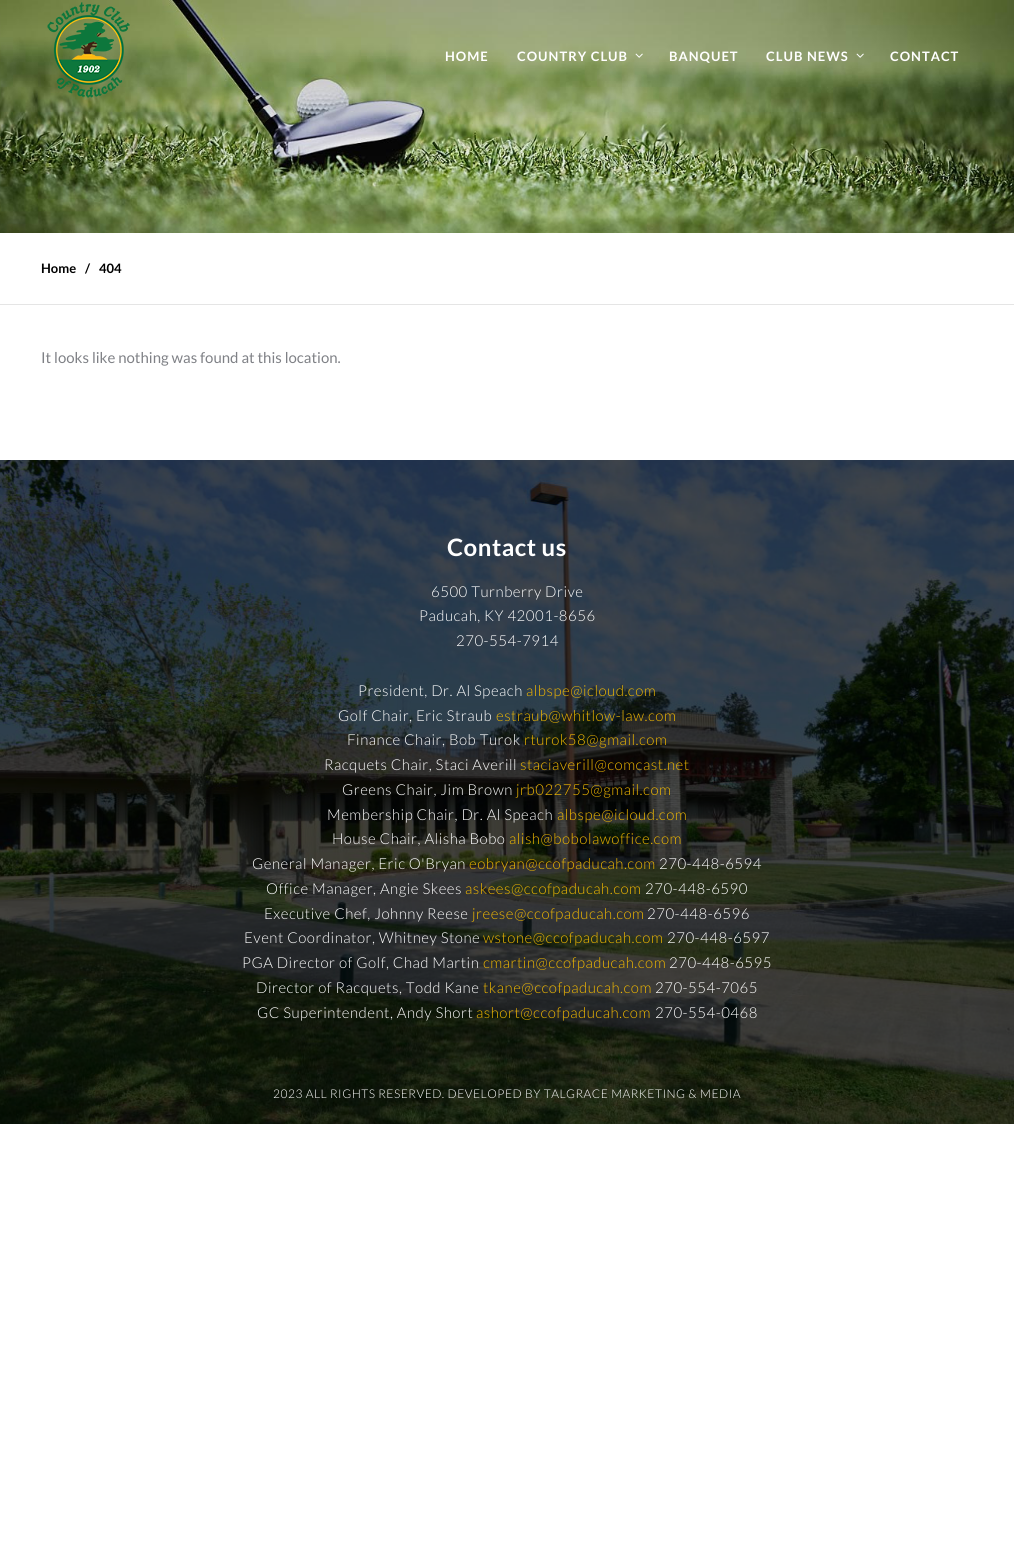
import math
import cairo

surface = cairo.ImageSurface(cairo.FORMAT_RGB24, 1014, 1554)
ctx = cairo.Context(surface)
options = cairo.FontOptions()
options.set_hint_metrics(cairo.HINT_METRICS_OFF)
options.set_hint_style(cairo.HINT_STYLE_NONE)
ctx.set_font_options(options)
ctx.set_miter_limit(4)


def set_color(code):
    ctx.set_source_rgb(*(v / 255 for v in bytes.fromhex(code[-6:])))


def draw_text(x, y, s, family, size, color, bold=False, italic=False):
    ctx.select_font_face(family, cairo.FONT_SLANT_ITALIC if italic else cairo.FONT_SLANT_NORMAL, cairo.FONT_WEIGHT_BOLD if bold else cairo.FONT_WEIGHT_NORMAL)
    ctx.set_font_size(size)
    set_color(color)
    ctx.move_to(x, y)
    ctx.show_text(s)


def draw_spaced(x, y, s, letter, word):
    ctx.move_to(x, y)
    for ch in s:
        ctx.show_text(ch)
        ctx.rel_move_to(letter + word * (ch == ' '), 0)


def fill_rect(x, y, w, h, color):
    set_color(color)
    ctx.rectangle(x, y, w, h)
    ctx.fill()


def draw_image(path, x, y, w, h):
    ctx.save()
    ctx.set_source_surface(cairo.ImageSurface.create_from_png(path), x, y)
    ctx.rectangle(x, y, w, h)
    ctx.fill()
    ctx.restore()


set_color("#ffffff")
ctx.paint()
draw_image("assets/img1.png", 0, 0, 1014, 233)
draw_image("assets/img2.png", 47, 2, 83, 96)
ctx.select_font_face("Lato", cairo.FONT_SLANT_NORMAL, cairo.FONT_WEIGHT_BOLD)
ctx.set_font_size(13)
set_color("#ffffff")
draw_spaced(445, 61, "HOME", 1, 0)
draw_spaced(517, 61, "COUNTRY CLUB", 1, 0)
draw_image("assets/img3.png", 635, 53, 8, 5)
draw_spaced(669, 61, "BANQUET", 1, 0)
draw_spaced(766, 61, "CLUB NEWS", 1, 0)
draw_image("assets/img4.png", 856, 53, 8, 5)
draw_spaced(890, 61, "CONTACT", 1, 0)
fill_rect(0, 304, 1014, 1, "#e5e5e5")
draw_text(41, 273, "Home", "Lato", 13, "#000000", bold=True)
draw_text(85, 273, "/", "Lato", 13, "#000000", bold=True)
draw_text(99, 273, "404", "Lato", 13, "#000000", bold=True)
draw_text(41, 363, "It looks like nothing was found at this location.", "Lato", 15, "#7f8186")
draw_image("assets/img5.png", 0, 460, 1014, 664)
ctx.select_font_face("Lato", cairo.FONT_SLANT_NORMAL, cairo.FONT_WEIGHT_BOLD)
ctx.set_font_size(24)
set_color("#ffffff")
draw_spaced(447, 556, "Contact us", 0.5, 0)
ctx.select_font_face("Lato Light")
ctx.set_font_size(15)
draw_spaced(431, 597, "6500 Turnberry Drive", 0.5, 0)
draw_spaced(419, 621, "Paducah, KY 42001-8656", 0.5, 0)
draw_spaced(456, 646, "270-554-7914", 0.5, 0)
draw_spaced(358, 696, "President, Dr. Al Speach", 0.5, 0)
set_color("#f2b900")
draw_spaced(526, 696, "albspe@icloud.com", 0.5, 0)
set_color("#ffffff")
draw_spaced(338, 721, "Golf Chair, Eric Straub", 0.5, 0)
set_color("#f2b900")
draw_spaced(496, 721, "estraub@whitlow-law.com", 0.5, 0)
set_color("#ffffff")
draw_spaced(347, 745, "Finance Chair, Bob Turok", 0.5, 0)
set_color("#f2b900")
draw_spaced(524, 745, "rturok58@gmail.com", 0.5, 0)
set_color("#ffffff")
draw_spaced(324, 770, "Racquets Chair, Staci Averill", 0.5, 0)
set_color("#f2b900")
draw_spaced(520, 770, "staciaverill@comcast.net", 0.5, 0)
set_color("#ffffff")
draw_spaced(342, 795, "Greens Chair, Jim Brown", 0.5, 0)
set_color("#f2b900")
draw_spaced(516, 795, "jrb022755@gmail.com", 0.5, 0)
set_color("#ffffff")
draw_spaced(327, 820, "Membership Chair, Dr. Al Speach", 0.5, 0)
set_color("#f2b900")
draw_spaced(557, 820, "albspe@icloud.com", 0.5, 0)
set_color("#ffffff")
draw_spaced(332, 844, "House Chair, Alisha Bobo", 0.5, 0)
set_color("#f2b900")
draw_spaced(509, 844, "alish@bobolawoffice.com", 0.5, 0)
set_color("#ffffff")
draw_spaced(252, 869, "General Manager, Eric O'Bryan", 0.5, 0)
set_color("#f2b900")
draw_spaced(469, 869, "eobryan@ccofpaducah.com", 0.5, 0)
set_color("#ffffff")
draw_spaced(659, 869, "270-448-6594", 0.5, 0)
draw_spaced(266, 894, "Office Manager, Angie Skees", 0.5, 0)
set_color("#f2b900")
draw_spaced(465, 894, "askees@ccofpaducah.com", 0.5, 0)
set_color("#ffffff")
draw_spaced(645, 894, "270-448-6590", 0.5, 0)
draw_spaced(264, 919, "Executive Chef, Johnny Reese", 0.5, 0)
set_color("#f2b900")
draw_spaced(472, 919, "jreese@ccofpaducah.com", 0.5, 0)
set_color("#ffffff")
draw_spaced(647, 919, "270-448-6596", 0.5, 0)
draw_spaced(244, 943, "Event Coordinator, Whitney Stone", 0.5, 0)
set_color("#f2b900")
draw_spaced(483, 943, "wstone@ccofpaducah.com", 0.5, 0)
set_color("#ffffff")
draw_spaced(667, 943, "270-448-6597", 0.5, 0)
draw_spaced(242, 968, "PGA Director of Golf, Chad Martin", 0.5, 0)
set_color("#f2b900")
draw_spaced(483, 968, "cmartin@ccofpaducah.com", 0.5, 0)
set_color("#ffffff")
draw_spaced(669, 968, "270-448-6595", 0.5, 0)
draw_spaced(256, 993, "Director of Racquets, Todd Kane", 0.5, 0)
set_color("#f2b900")
draw_spaced(483, 993, "tkane@ccofpaducah.com", 0.5, 0)
set_color("#ffffff")
draw_spaced(655, 993, "270-554-7065", 0.5, 0)
draw_spaced(257, 1018, "GC Superintendent, Andy Short", 0.5, 0)
set_color("#f2b900")
draw_spaced(476, 1018, "ashort@ccofpaducah.com", 0.5, 0)
set_color("#ffffff")
draw_spaced(655, 1018, "270-554-0468", 0.5, 0)
ctx.set_font_size(12)
draw_spaced(273, 1098, "2023 ALL RIGHTS RESERVED. DEVELOPED BY TALGRACE MARKETING & MEDIA", 0.5, 0)
surface.write_to_png("output.png")
